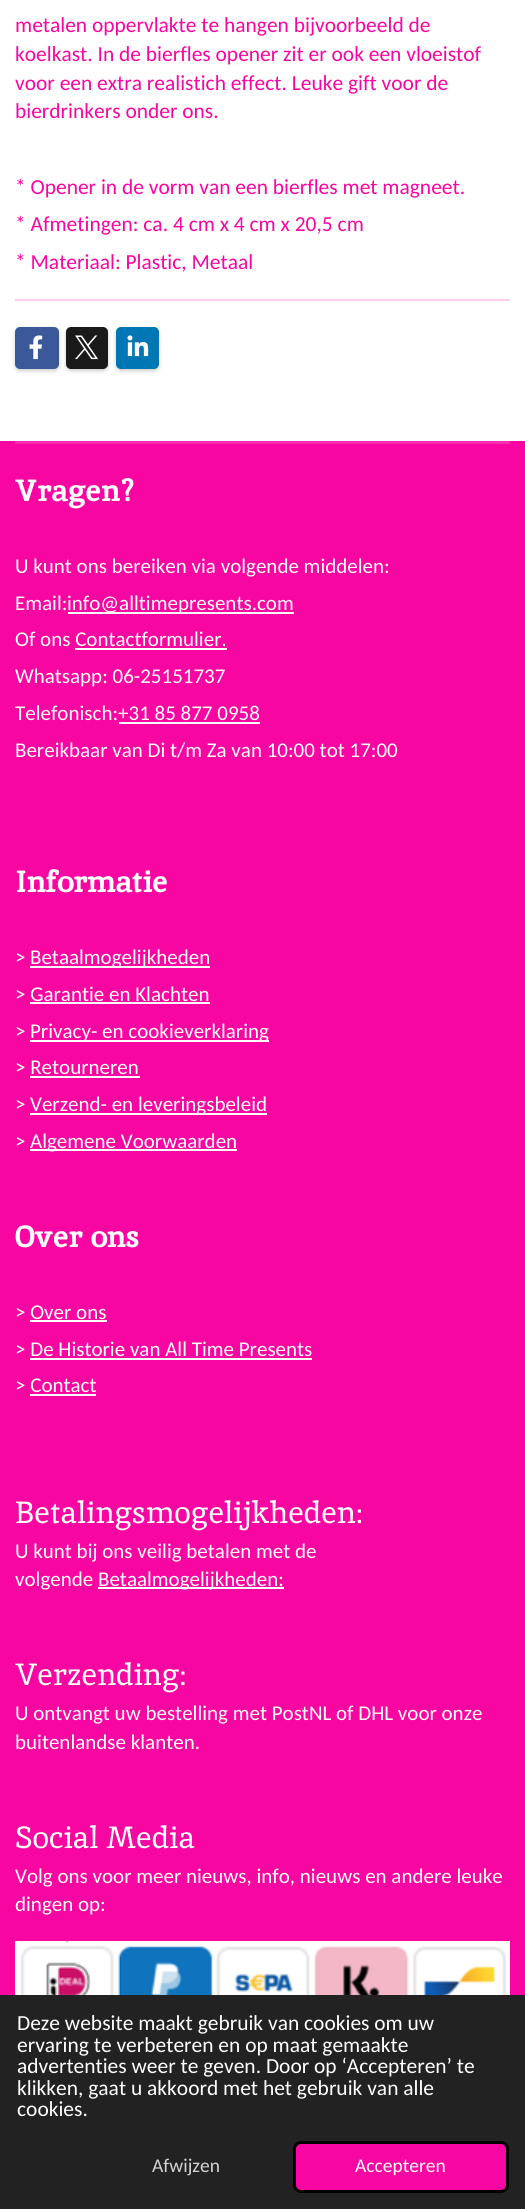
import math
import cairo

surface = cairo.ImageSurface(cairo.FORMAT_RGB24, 525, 2209)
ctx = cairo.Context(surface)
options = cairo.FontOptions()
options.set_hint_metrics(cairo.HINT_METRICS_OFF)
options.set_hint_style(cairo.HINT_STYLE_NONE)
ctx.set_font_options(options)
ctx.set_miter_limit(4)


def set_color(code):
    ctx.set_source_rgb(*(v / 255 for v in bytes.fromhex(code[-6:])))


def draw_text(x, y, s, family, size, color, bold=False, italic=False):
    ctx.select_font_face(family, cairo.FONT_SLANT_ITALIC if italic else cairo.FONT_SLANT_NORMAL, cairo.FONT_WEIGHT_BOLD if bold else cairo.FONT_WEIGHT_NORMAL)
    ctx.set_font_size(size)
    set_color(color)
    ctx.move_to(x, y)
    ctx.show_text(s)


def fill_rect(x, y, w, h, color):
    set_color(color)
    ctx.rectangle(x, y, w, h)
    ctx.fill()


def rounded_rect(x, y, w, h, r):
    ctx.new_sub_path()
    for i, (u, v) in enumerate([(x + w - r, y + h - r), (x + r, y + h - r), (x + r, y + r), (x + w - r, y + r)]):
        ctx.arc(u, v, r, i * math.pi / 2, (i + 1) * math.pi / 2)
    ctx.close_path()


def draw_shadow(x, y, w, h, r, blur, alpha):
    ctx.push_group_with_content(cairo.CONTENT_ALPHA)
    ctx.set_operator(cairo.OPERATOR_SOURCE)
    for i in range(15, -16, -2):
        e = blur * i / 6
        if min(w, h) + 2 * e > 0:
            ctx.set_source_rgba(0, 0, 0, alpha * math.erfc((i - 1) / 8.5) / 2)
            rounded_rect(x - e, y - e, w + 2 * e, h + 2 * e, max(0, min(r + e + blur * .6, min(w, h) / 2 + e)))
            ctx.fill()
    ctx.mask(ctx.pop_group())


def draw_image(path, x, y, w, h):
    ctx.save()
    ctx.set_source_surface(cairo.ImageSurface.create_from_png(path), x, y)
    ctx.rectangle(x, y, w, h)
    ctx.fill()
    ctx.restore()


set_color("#ffffff")
ctx.paint()
draw_text(15, 32, "metalen oppervlakte te hangen bijvoorbeeld de", "Carlito", 21.45, "#f806a1")
draw_text(15, 61, "koelkast. In de bierfles opener zit er ook een vloeistof", "Carlito", 21.45, "#f806a1")
draw_text(15, 90, "voor een extra realistich effect. Leuke gift voor de", "Carlito", 21.45, "#f806a1")
draw_text(15, 118, "bierdrinkers onder ons.", "Carlito", 21.45, "#f806a1")
draw_text(15, 194, "* Opener in de vorm van een bierfles met magneet.", "Carlito", 21.45, "#f806a1")
draw_text(15, 231, "* Afmetingen: ca. 4 cm x 4 cm x 20,5 cm", "Carlito", 21.45, "#f806a1")
draw_text(15, 269, "* Materiaal: Plastic, Metaal", "Carlito", 21.45, "#f806a1")
fill_rect(15, 299, 495, 2, "#fecdec")
set_color("#000000")
draw_shadow(15, 329, 44, 42, 5, 2, 0.2)
set_color("#3b5998")
rounded_rect(15, 327, 44, 42, 5)
ctx.fill()
draw_image("assets/img1.png", 29, 335, 14, 25)
set_color("#000000")
draw_shadow(66, 329, 42, 42, 5, 2, 0.2)
set_color("#1a1a1a")
rounded_rect(66, 327, 42, 42, 5)
ctx.fill()
draw_image("assets/img2.png", 75, 335, 23, 25)
set_color("#000000")
draw_shadow(116, 329, 43, 42, 5, 2, 0.2)
set_color("#0077b5")
rounded_rect(116, 327, 43, 42, 5)
ctx.fill()
draw_image("assets/img3.png", 127, 335, 22, 22)
fill_rect(0, 441, 525, 1554, "#f806a1")
fill_rect(15, 441, 495, 3, "#f92baf")
draw_text(15, 501, "Vragen?", "Inika", 30.6, "#ffffff", bold=True)
draw_text(15, 573, "U kunt ons bereiken via volgende middelen:", "Carlito", 21, "#ffffff")
draw_text(15, 610, "Email:", "Carlito", 21, "#ffffff")
fill_rect(68, 612, 226, 2, "#ffffff")
draw_text(67, 610, "info@alltimepresents.com", "Carlito", 21, "#ffffff")
draw_text(15, 646, "Of ons Contactformulier.", "Carlito", 21, "#ffffff")
fill_rect(75, 648, 152, 2, "#ffffff")
draw_text(15, 683, "Whatsapp: 06-25151737", "Carlito", 21, "#ffffff")
draw_text(15, 720, "Telefonisch:+31 85 877 0958", "Carlito", 21, "#ffffff")
fill_rect(119, 722, 141, 2, "#ffffff")
draw_text(15, 757, "Bereikbaar van Di t/m Za van 10:00 tot 17:00", "Carlito", 21, "#ffffff")
draw_text(15, 892, "Informatie", "Inika", 30.6, "#ffffff", bold=True)
draw_text(15, 964, ">", "Carlito", 21, "#ffffff")
fill_rect(30, 966, 180, 2, "#ffffff")
draw_text(30, 964, "Betaalmogelijkheden", "Carlito", 21, "#ffffff")
draw_text(15, 1001, "> Garantie en Klachten", "Carlito", 21, "#ffffff")
fill_rect(30, 1002, 180, 2, "#ffffff")
draw_text(15, 1038, ">", "Carlito", 21, "#ffffff")
fill_rect(30, 1040, 239, 2, "#ffffff")
draw_text(30, 1038, "Privacy- en cookieverklaring", "Carlito", 21, "#ffffff")
draw_text(15, 1074, "> Retourneren", "Carlito", 21, "#ffffff")
fill_rect(30, 1076, 110, 2, "#ffffff")
draw_text(15, 1111, ">", "Carlito", 21, "#ffffff")
fill_rect(30, 1113, 237, 2, "#ffffff")
draw_text(30, 1111, "Verzend- en leveringsbeleid", "Carlito", 21, "#ffffff")
draw_text(15, 1148, ">", "Carlito", 21, "#ffffff")
fill_rect(30, 1149, 207, 2, "#ffffff")
draw_text(30, 1148, "Algemene Voorwaarden", "Carlito", 21, "#ffffff")
draw_text(15, 1247, "Over ons", "Inika", 30.6, "#ffffff", bold=True)
draw_text(15, 1319, "> Over ons", "Carlito", 21, "#ffffff")
fill_rect(30, 1320, 77, 2, "#ffffff")
draw_text(15, 1356, "> De Historie van All Time Presents", "Carlito", 21, "#ffffff")
fill_rect(30, 1358, 282, 2, "#ffffff")
draw_text(15, 1392, "> Contact", "Carlito", 21, "#ffffff")
fill_rect(30, 1394, 66, 2, "#ffffff")
draw_text(15, 1523, "Betalingsmogelijkheden:", "Inika", 30.6, "#ffffff")
draw_text(15, 1558, "U kunt bij ons veilig betalen met de", "Carlito", 21, "#ffffff")
draw_text(15, 1586, "volgende", "Carlito", 21, "#ffffff")
fill_rect(98, 1587, 186, 2, "#ffffff")
draw_text(98, 1586, "Betaalmogelijkheden:", "Carlito", 21, "#ffffff")
draw_text(15, 1685, "Verzending:", "Inika", 30.6, "#ffffff")
draw_text(15, 1720, "U ontvangt uw bestelling met PostNL of DHL voor onze", "Carlito", 21, "#ffffff")
draw_text(15, 1749, "buitenlandse klanten.", "Carlito", 21, "#ffffff")
draw_text(15, 1848, "Social Media", "Inika", 30.6, "#ffffff")
draw_text(15, 1883, "Volg ons voor meer nieuws, info, nieuws en andere leuke", "Carlito", 21, "#ffffff")
draw_text(15, 1911, "dingen op:", "Carlito", 21, "#ffffff")
draw_image("assets/img4.png", 15, 1941, 495, 54)
fill_rect(0, 1995, 525, 214, "#222222")
draw_text(17, 2030, "Deze website maakt gebruik van cookies om uw", "Carlito", 21.45, "#ffffff")
draw_text(17, 2052, "ervaring te verbeteren en op maat gemaakte", "Carlito", 21.45, "#ffffff")
draw_text(17, 2073, "advertenties weer te geven. Door op ‘Accepteren’ te", "Carlito", 21.45, "#ffffff")
draw_text(17, 2095, "klikken, gaat u akkoord met het gebruik van alle", "Carlito", 21.45, "#ffffff")
draw_text(17, 2116, "cookies.", "Carlito", 21.45, "#ffffff")
draw_text(152, 2172, "Afwijzen", "Carlito", 19.5, "#d3d3d3")
set_color("#f806a1")
rounded_rect(294.5, 2142.5, 213, 49, 6.5)
ctx.fill_preserve()
set_color("#000000")
ctx.set_line_width(3)
ctx.stroke()
draw_text(355, 2172, "Accepteren", "Carlito", 19.5, "#ffffff")
surface.write_to_png("output.png")
